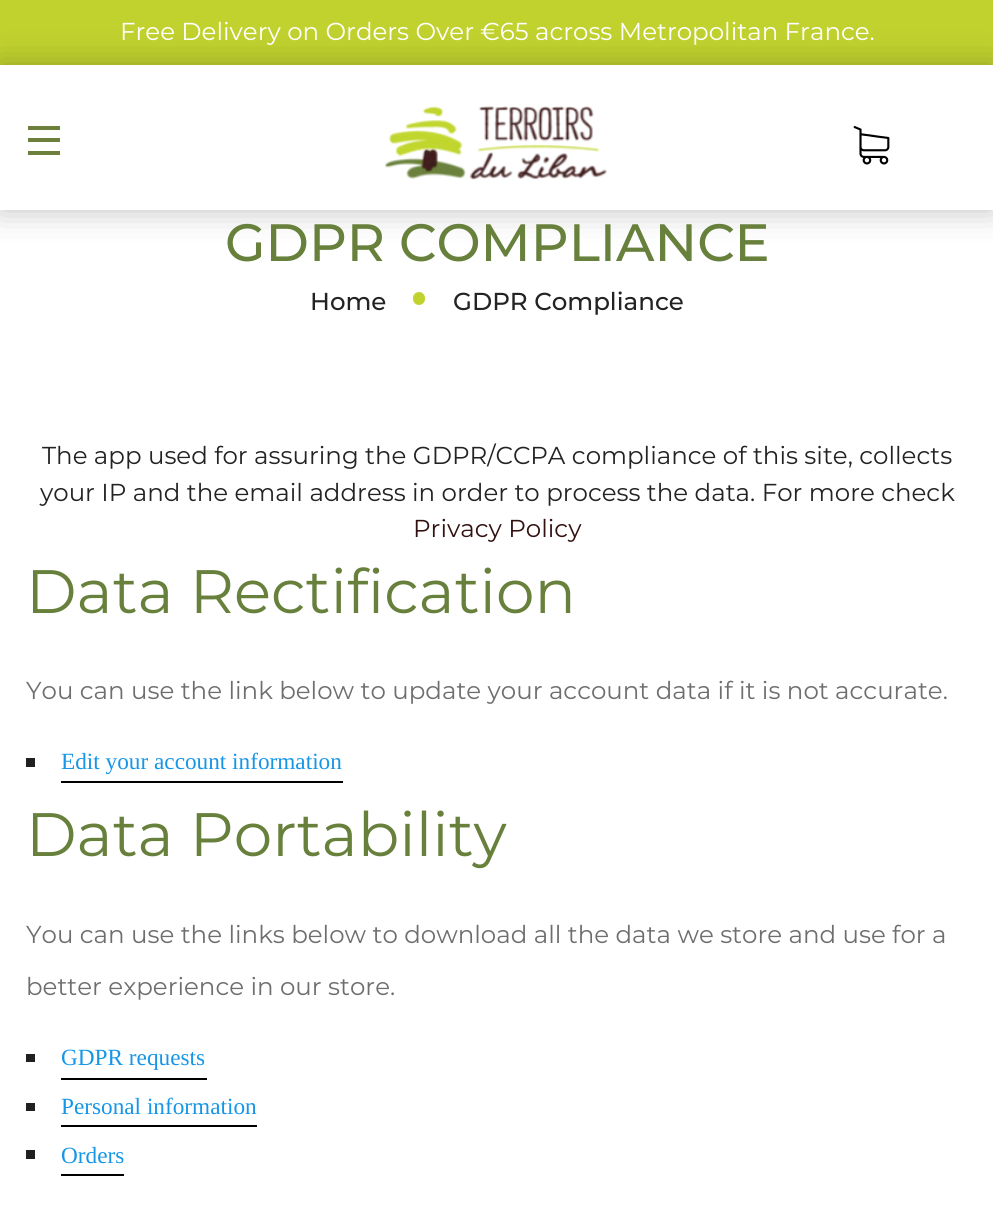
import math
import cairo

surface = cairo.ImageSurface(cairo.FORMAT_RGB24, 993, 1228)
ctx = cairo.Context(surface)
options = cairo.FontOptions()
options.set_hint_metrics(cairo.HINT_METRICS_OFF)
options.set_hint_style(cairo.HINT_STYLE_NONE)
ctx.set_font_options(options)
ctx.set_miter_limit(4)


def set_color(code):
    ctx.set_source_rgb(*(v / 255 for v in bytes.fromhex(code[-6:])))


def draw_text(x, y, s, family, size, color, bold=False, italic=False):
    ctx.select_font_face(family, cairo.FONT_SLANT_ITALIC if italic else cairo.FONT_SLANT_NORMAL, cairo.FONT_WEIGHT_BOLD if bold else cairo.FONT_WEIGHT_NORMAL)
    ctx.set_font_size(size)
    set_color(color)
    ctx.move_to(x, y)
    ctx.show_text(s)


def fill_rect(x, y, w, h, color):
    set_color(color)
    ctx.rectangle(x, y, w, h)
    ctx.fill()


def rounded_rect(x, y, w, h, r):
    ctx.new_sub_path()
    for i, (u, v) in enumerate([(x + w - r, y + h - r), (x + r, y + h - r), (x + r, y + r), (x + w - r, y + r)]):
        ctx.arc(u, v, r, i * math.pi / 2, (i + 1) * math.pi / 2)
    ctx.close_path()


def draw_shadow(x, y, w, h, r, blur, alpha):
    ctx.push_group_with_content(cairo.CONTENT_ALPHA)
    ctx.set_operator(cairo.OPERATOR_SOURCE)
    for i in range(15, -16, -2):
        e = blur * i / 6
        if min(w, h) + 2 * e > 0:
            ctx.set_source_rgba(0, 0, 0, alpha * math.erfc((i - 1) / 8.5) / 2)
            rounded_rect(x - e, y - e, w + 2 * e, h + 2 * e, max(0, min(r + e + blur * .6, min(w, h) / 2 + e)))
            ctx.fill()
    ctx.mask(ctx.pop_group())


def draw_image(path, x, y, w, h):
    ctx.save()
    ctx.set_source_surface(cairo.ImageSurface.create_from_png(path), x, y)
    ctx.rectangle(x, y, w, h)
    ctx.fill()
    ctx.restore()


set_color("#ffffff")
ctx.paint()
fill_rect(0, 0, 993, 65, "#c1d22f")
ctx.save()
ctx.set_fill_rule(cairo.FILL_RULE_EVEN_ODD)
ctx.new_path()
ctx.move_to(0, 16)
ctx.line_to(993, 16)
ctx.line_to(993, 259)
ctx.line_to(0, 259)
ctx.close_path()
ctx.move_to(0, 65)
ctx.line_to(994, 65)
ctx.line_to(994, 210)
ctx.line_to(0, 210)
ctx.close_path()
ctx.clip()
set_color("#000000")
draw_shadow(0, 65, 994, 145, 0, 16, 0.25)
ctx.restore()
fill_rect(28, 126, 32, 4, "#6c803c")
fill_rect(28, 138, 32, 4, "#6c803c")
fill_rect(28, 151, 32, 4, "#6c803c")
draw_image("assets/img1.png", 385, 106, 222, 74)
draw_image("assets/img2.png", 853, 126, 37, 39)
draw_text(120, 40, "Free Delivery on Orders Over €65 across Metropolitan France.", "Montserrat", 24.5, "#ffffff")
draw_text(225, 261, "GDPR COMPLIANCE", "Montserrat Medium", 52.5, "#67803b")
draw_text(310, 310, "Home", "Montserrat Medium", 24.5, "#232323")
set_color("#c1d22f")
rounded_rect(413, 292, 12, 13, 6)
ctx.fill()
draw_text(453, 310, "GDPR Compliance", "Montserrat Medium", 24.5, "#232323")
draw_text(42, 464, "The app used for assuring the GDPR/CCPA compliance of this site, collects", "Montserrat", 24.5, "#232323")
draw_text(40, 501, "your IP and the email address in order to process the data. For more check", "Montserrat", 24.5, "#232323")
draw_text(413, 537, "Privacy Policy", "Montserrat", 24.5, "#331111")
draw_text(26, 613, "Data Rectification", "Montserrat", 61.25, "#67803b")
draw_text(26, 699, "You can use the link below to update your account data if it is not accurate.", "Montserrat", 24.5, "#6e6e6e")
fill_rect(26, 758, 9, 9, "#1f2021")
fill_rect(61, 781, 282, 2, "#000000")
draw_text(61, 769, "Edit your account information", "Liberation Serif", 23.25, "#1696e7")
draw_text(26, 856, "Data Portability", "Montserrat", 61.25, "#67803b")
draw_text(26, 943, "You can use the links below to download all the data we store and use for a", "Montserrat", 24.5, "#6e6e6e")
draw_text(26, 995, "better experience in our store.", "Montserrat", 24.5, "#6e6e6e")
fill_rect(26, 1054, 9, 8, "#1f2021")
fill_rect(61, 1078, 146, 2, "#000000")
draw_text(61, 1065, "GDPR requests", "Liberation Serif", 23.25, "#1696e7")
fill_rect(26, 1103, 9, 8, "#1f2021")
fill_rect(61, 1125, 196, 2, "#000000")
draw_text(61, 1114, "Personal information", "Liberation Serif", 23.25, "#1696e7")
fill_rect(26, 1150, 9, 9, "#1f2021")
fill_rect(61, 1174, 63, 2, "#000000")
draw_text(61, 1163, "Orders", "Liberation Serif", 23.25, "#1696e7")
surface.write_to_png("output.png")
